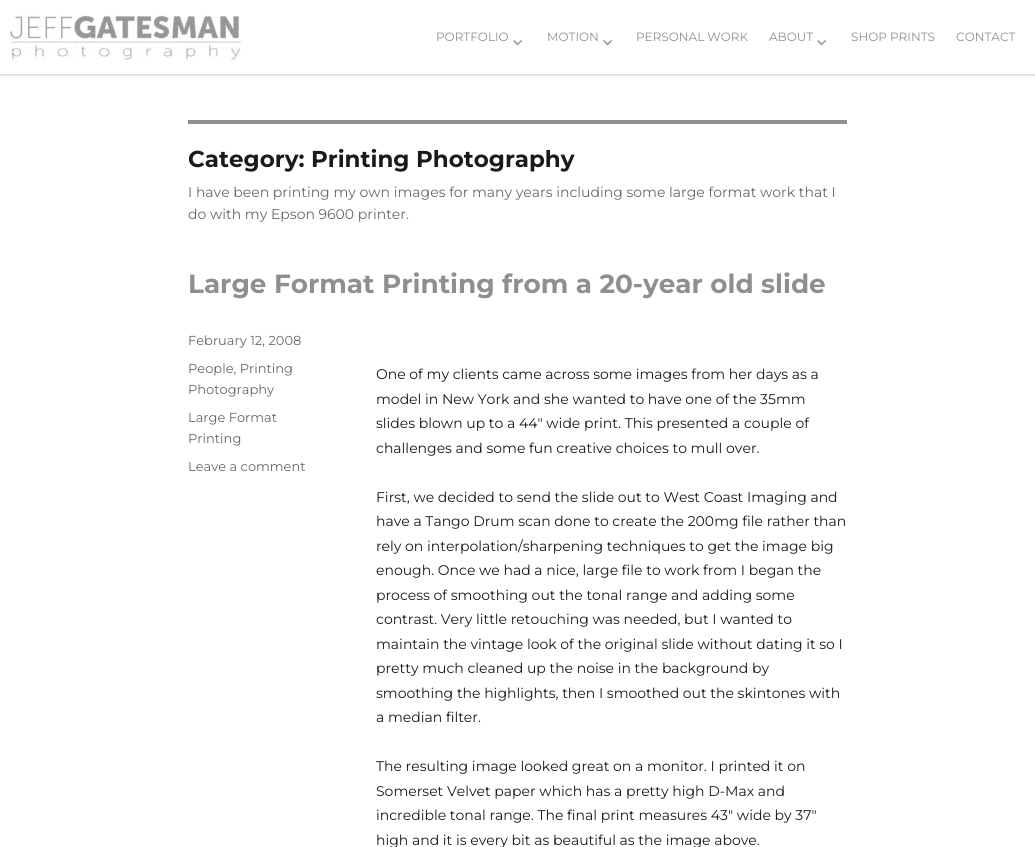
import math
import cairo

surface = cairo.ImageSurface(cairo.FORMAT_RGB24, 1035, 847)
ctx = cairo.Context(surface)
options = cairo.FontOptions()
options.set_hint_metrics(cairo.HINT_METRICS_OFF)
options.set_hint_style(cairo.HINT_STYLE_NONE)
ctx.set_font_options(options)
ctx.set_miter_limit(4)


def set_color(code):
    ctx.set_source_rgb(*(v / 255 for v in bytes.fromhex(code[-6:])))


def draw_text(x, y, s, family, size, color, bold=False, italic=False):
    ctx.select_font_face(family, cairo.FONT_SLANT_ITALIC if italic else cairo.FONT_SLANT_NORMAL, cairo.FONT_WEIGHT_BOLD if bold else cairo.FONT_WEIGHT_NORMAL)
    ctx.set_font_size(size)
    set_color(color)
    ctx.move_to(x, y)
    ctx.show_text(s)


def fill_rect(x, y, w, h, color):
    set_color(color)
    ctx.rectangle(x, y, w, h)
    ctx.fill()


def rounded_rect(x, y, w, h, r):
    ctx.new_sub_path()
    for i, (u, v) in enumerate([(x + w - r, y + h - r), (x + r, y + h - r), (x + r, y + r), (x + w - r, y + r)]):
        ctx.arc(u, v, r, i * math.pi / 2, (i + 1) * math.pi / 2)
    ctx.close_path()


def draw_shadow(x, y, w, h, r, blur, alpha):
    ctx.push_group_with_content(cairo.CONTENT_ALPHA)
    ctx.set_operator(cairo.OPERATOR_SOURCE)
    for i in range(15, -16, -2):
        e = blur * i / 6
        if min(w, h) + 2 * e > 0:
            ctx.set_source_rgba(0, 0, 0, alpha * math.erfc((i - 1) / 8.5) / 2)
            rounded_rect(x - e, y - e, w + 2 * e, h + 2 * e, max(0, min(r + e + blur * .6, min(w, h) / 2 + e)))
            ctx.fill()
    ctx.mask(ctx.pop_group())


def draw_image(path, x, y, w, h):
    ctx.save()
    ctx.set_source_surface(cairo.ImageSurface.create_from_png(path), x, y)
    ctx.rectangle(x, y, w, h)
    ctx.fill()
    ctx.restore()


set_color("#ffffff")
ctx.paint()
ctx.save()
ctx.rectangle(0, 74, 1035, 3)
ctx.clip()
set_color("#000000")
draw_shadow(0, 1, 1035, 74, 0, 1.5, 0.22)
ctx.restore()
draw_image("assets/img1.png", 9, 15, 232, 48)
draw_text(436, 41, "PORTFOLIO", "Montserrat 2 Thin", 12, "#8f8f8f")
draw_image("assets/img2.png", 513, 40, 9, 6)
draw_text(547, 41, "MOTION", "Montserrat 2 Thin", 12, "#8f8f8f")
draw_image("assets/img2.png", 603, 40, 9, 6)
draw_text(636, 41, "PERSONAL WORK", "Montserrat 2 Thin", 12, "#8f8f8f")
draw_text(769, 41, "ABOUT", "Montserrat 2 Thin", 12, "#8f8f8f")
draw_image("assets/img2.png", 817, 40, 9, 6)
draw_text(851, 41, "SHOP PRINTS", "Montserrat 2 Thin", 12, "#8f8f8f")
draw_text(956, 41, "CONTACT", "Montserrat 2 Thin", 12, "#8f8f8f")
fill_rect(188, 120, 659, 4, "#8f8f8f")
draw_text(188, 167, "Category: Printing Photography", "Montserrat Thin", 23, "#1a1a1a")
draw_text(188, 197, "I have been printing my own images for many years including some large format work that I", "Montserrat 2 Thin", 14, "#686868")
draw_text(188, 219, "do with my Epson 9600 printer.", "Montserrat 2 Thin", 14, "#686868")
draw_text(188, 293, "Large Format Printing from a 20-year old slide", "Montserrat Thin", 26.3, "#8f8f8f")
draw_text(188, 345, "February 12, 2008", "Montserrat 2 Thin", 13, "#686868")
draw_text(188, 373, "People, Printing", "Montserrat 2 Thin", 13, "#686868")
draw_text(188, 394, "Photography", "Montserrat 2 Thin", 13, "#686868")
draw_text(188, 422, "Large Format", "Montserrat 2 Thin", 13, "#686868")
draw_text(188, 443, "Printing", "Montserrat 2 Thin", 13, "#686868")
draw_text(188, 471, "Leave a comment", "Montserrat 2 Thin", 13, "#686868")
draw_text(376, 379, "One of my clients came across some images from her days as a", "Montserrat 2 Thin", 14, "#1a1a1a")
draw_text(376, 404, "model in New York and she wanted to have one of the 35mm", "Montserrat 2 Thin", 14, "#1a1a1a")
draw_text(376, 428, "slides blown up to a 44″ wide print. This presented a couple of", "Montserrat 2 Thin", 14, "#1a1a1a")
draw_text(376, 453, "challenges and some fun creative choices to mull over.", "Montserrat 2 Thin", 14, "#1a1a1a")
draw_text(376, 502, "First, we decided to send the slide out to West Coast Imaging and", "Montserrat 2 Thin", 14, "#1a1a1a")
draw_text(376, 526, "have a Tango Drum scan done to create the 200mg file rather than", "Montserrat 2 Thin", 14, "#1a1a1a")
draw_text(376, 551, "rely on interpolation/sharpening techniques to get the image big", "Montserrat 2 Thin", 14, "#1a1a1a")
draw_text(376, 575, "enough. Once we had a nice, large file to work from I began the", "Montserrat 2 Thin", 14, "#1a1a1a")
draw_text(376, 600, "process of smoothing out the tonal range and adding some", "Montserrat 2 Thin", 14, "#1a1a1a")
draw_text(376, 624, "contrast. Very little retouching was needed, but I wanted to", "Montserrat 2 Thin", 14, "#1a1a1a")
draw_text(376, 649, "maintain the vintage look of the original slide without dating it so I", "Montserrat 2 Thin", 14, "#1a1a1a")
draw_text(376, 673, "pretty much cleaned up the noise in the background by", "Montserrat 2 Thin", 14, "#1a1a1a")
draw_text(376, 698, "smoothing the highlights, then I smoothed out the skintones with", "Montserrat 2 Thin", 14, "#1a1a1a")
draw_text(376, 722, "a median filter.", "Montserrat 2 Thin", 14, "#1a1a1a")
draw_text(376, 771, "The resulting image looked great on a monitor. I printed it on", "Montserrat 2 Thin", 14, "#1a1a1a")
draw_text(376, 796, "Somerset Velvet paper which has a pretty high D-Max and", "Montserrat 2 Thin", 14, "#1a1a1a")
draw_text(376, 820, "incredible tonal range. The final print measures 43″ wide by 37″", "Montserrat 2 Thin", 14, "#1a1a1a")
draw_text(376, 845, "high and it is every bit as beautiful as the image above.", "Montserrat 2 Thin", 14, "#1a1a1a")
surface.write_to_png("output.png")
